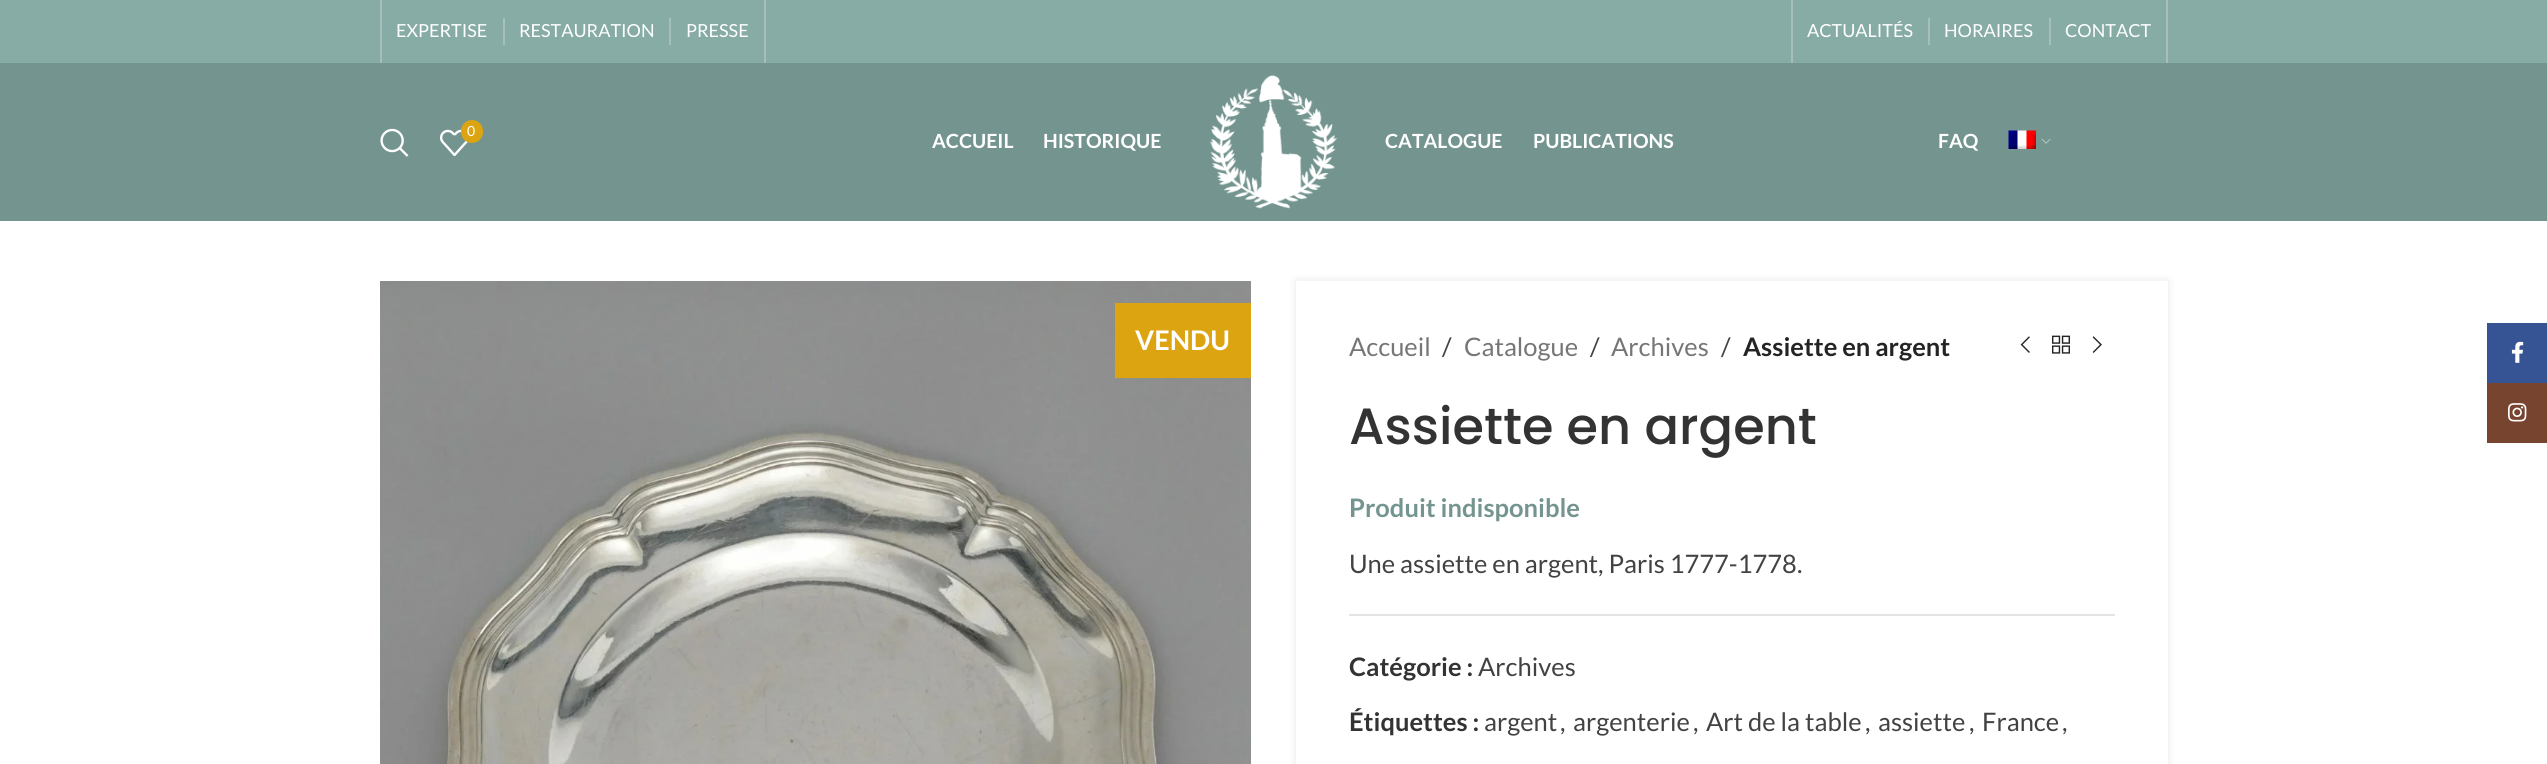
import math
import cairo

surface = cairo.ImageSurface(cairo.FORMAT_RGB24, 2547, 764)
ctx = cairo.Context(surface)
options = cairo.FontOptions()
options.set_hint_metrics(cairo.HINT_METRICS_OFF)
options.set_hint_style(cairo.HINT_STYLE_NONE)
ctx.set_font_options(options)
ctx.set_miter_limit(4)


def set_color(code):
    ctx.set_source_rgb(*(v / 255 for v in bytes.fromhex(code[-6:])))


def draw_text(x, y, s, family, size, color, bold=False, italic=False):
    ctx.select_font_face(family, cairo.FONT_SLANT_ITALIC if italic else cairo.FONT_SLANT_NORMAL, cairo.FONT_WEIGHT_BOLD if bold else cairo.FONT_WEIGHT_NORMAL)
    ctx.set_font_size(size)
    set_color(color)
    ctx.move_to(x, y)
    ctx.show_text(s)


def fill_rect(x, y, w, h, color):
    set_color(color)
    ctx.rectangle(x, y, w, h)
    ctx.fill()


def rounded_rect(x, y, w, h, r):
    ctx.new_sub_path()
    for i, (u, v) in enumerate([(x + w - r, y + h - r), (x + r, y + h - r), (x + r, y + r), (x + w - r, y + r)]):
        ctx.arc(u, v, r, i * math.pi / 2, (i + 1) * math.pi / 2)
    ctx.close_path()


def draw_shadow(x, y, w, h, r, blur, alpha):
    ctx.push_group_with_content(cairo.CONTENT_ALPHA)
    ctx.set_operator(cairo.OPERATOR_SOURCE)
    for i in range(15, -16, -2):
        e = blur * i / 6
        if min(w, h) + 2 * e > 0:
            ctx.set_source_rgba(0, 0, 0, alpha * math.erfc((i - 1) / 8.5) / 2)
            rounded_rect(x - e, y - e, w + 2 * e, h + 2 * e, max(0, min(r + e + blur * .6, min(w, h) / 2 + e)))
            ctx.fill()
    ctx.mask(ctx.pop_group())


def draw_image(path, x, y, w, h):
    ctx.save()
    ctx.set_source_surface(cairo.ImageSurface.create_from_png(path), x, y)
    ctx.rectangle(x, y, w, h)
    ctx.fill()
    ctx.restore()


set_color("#ffffff")
ctx.paint()
fill_rect(0, 0, 2547, 63, "#87aba5")
fill_rect(380, 0, 2, 63, "#a5c0bc")
draw_text(396, 37, "EXPERTISE", "Lato", 18, "#ffffff")
fill_rect(503, 18, 2, 27, "#a5c0bc")
draw_text(519, 37, "RESTAURATION", "Lato", 18, "#ffffff")
fill_rect(669, 18, 2, 27, "#a5c0bc")
draw_text(686, 37, "PRESSE", "Lato", 18, "#ffffff")
fill_rect(764, 0, 2, 63, "#a5c0bc")
fill_rect(1791, 0, 2, 63, "#a5c0bc")
draw_text(1807, 37, "ACTUALITÉS", "Lato", 18, "#ffffff")
fill_rect(1928, 18, 2, 27, "#a5c0bc")
draw_text(1944, 37, "HORAIRES", "Lato", 18, "#ffffff")
fill_rect(2049, 18, 2, 27, "#a5c0bc")
draw_text(2065, 37, "CONTACT", "Lato", 18, "#ffffff")
fill_rect(2166, 0, 2, 63, "#a5c0bc")
fill_rect(0, 63, 2547, 158, "#74948f")
draw_image("assets/img1.png", 380, 128, 29, 29)
draw_image("assets/img2.png", 440, 129, 28, 27)
set_color("#dca410")
rounded_rect(461, 120, 22, 23, 11)
ctx.fill()
draw_text(467, 136, "0", "Lato", 14, "#ffffff")
draw_text(932, 148, "ACCUEIL", "Lato", 19.5, "#ffffff", bold=True)
draw_text(1043, 148, "HISTORIQUE", "Lato", 19.5, "#ffffff", bold=True)
draw_image("assets/img3.png", 1209, 75, 129, 134)
draw_text(1385, 148, "CATALOGUE", "Lato", 19.5, "#ffffff", bold=True)
draw_text(1533, 148, "PUBLICATIONS", "Lato", 19.5, "#ffffff", bold=True)
draw_text(1938, 148, "FAQ", "Lato", 19.5, "#ffffff", bold=True)
draw_image("assets/img4.png", 2008, 130, 28, 19)
draw_image("assets/img5.png", 2041, 138, 10, 6)
draw_image("assets/img6.png", 380, 281, 871, 483)
fill_rect(1115, 303, 136, 75, "#dca410")
draw_text(1135, 350, "VENDU", "Lato", 27, "#ffffff", bold=True)
set_color("#000000")
draw_shadow(1296, 281, 872, 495, 0, 4, 0.1)
fill_rect(1296, 281, 872, 483, "#ffffff")
draw_text(1349, 356, "Accueil", "Lato", 25.5, "#767676")
draw_text(1442, 356, "/", "Lato", 25.5, "#424242")
draw_text(1464, 356, "Catalogue", "Lato", 25.5, "#767676")
draw_text(1590, 356, "/", "Lato", 25.5, "#424242")
draw_text(1611, 356, "Archives", "Lato", 25.5, "#767676")
draw_text(1721, 356, "/", "Lato", 25.5, "#424242")
draw_text(1743, 356, "Assiette en argent", "Lato", 25.5, "#242424", bold=True)
draw_image("assets/img7.png", 2020, 336, 10, 17)
draw_image("assets/img8.png", 2052, 335, 18, 19)
draw_image("assets/img9.png", 2092, 336, 10, 17)
draw_text(1349, 444, "Assiette en argent", "Poppins Medium", 51, "#333333")
draw_text(1349, 517, "Produit indisponible", "Lato", 25.5, "#74948f", bold=True)
draw_text(1349, 573, "Une assiette en argent, Paris 1777-1778.", "Lato", 25.5, "#424242")
fill_rect(1349, 614, 766, 2, "#e4e4e4")
draw_text(1349, 676, "Catégorie :", "Lato", 25.5, "#333333", bold=True)
draw_text(1478, 676, "Archives", "Lato", 25.5, "#424242")
draw_text(1349, 731, "Étiquettes :", "Lato", 25.5, "#333333", bold=True)
draw_text(1484, 731, "argent", "Lato", 25.5, "#424242")
draw_text(1560, 731, ",", "Lato", 25.5, "#424242")
draw_text(1573, 731, "argenterie", "Lato", 25.5, "#424242")
draw_text(1693, 731, ",", "Lato", 25.5, "#424242")
draw_text(1706, 731, "Art de la table", "Lato", 25.5, "#424242")
draw_text(1865, 731, ",", "Lato", 25.5, "#424242")
draw_text(1878, 731, "assiette", "Lato", 25.5, "#424242")
draw_text(1969, 731, ",", "Lato", 25.5, "#424242")
draw_text(1982, 731, "France", "Lato", 25.5, "#424242")
draw_text(2062, 731, ",", "Lato", 25.5, "#424242")
fill_rect(2487, 323, 60, 60, "#365493")
draw_image("assets/img10.png", 2511, 341, 13, 22)
fill_rect(2487, 383, 60, 60, "#774430")
draw_image("assets/img11.png", 2508, 403, 19, 19)
surface.write_to_png("output.png")
